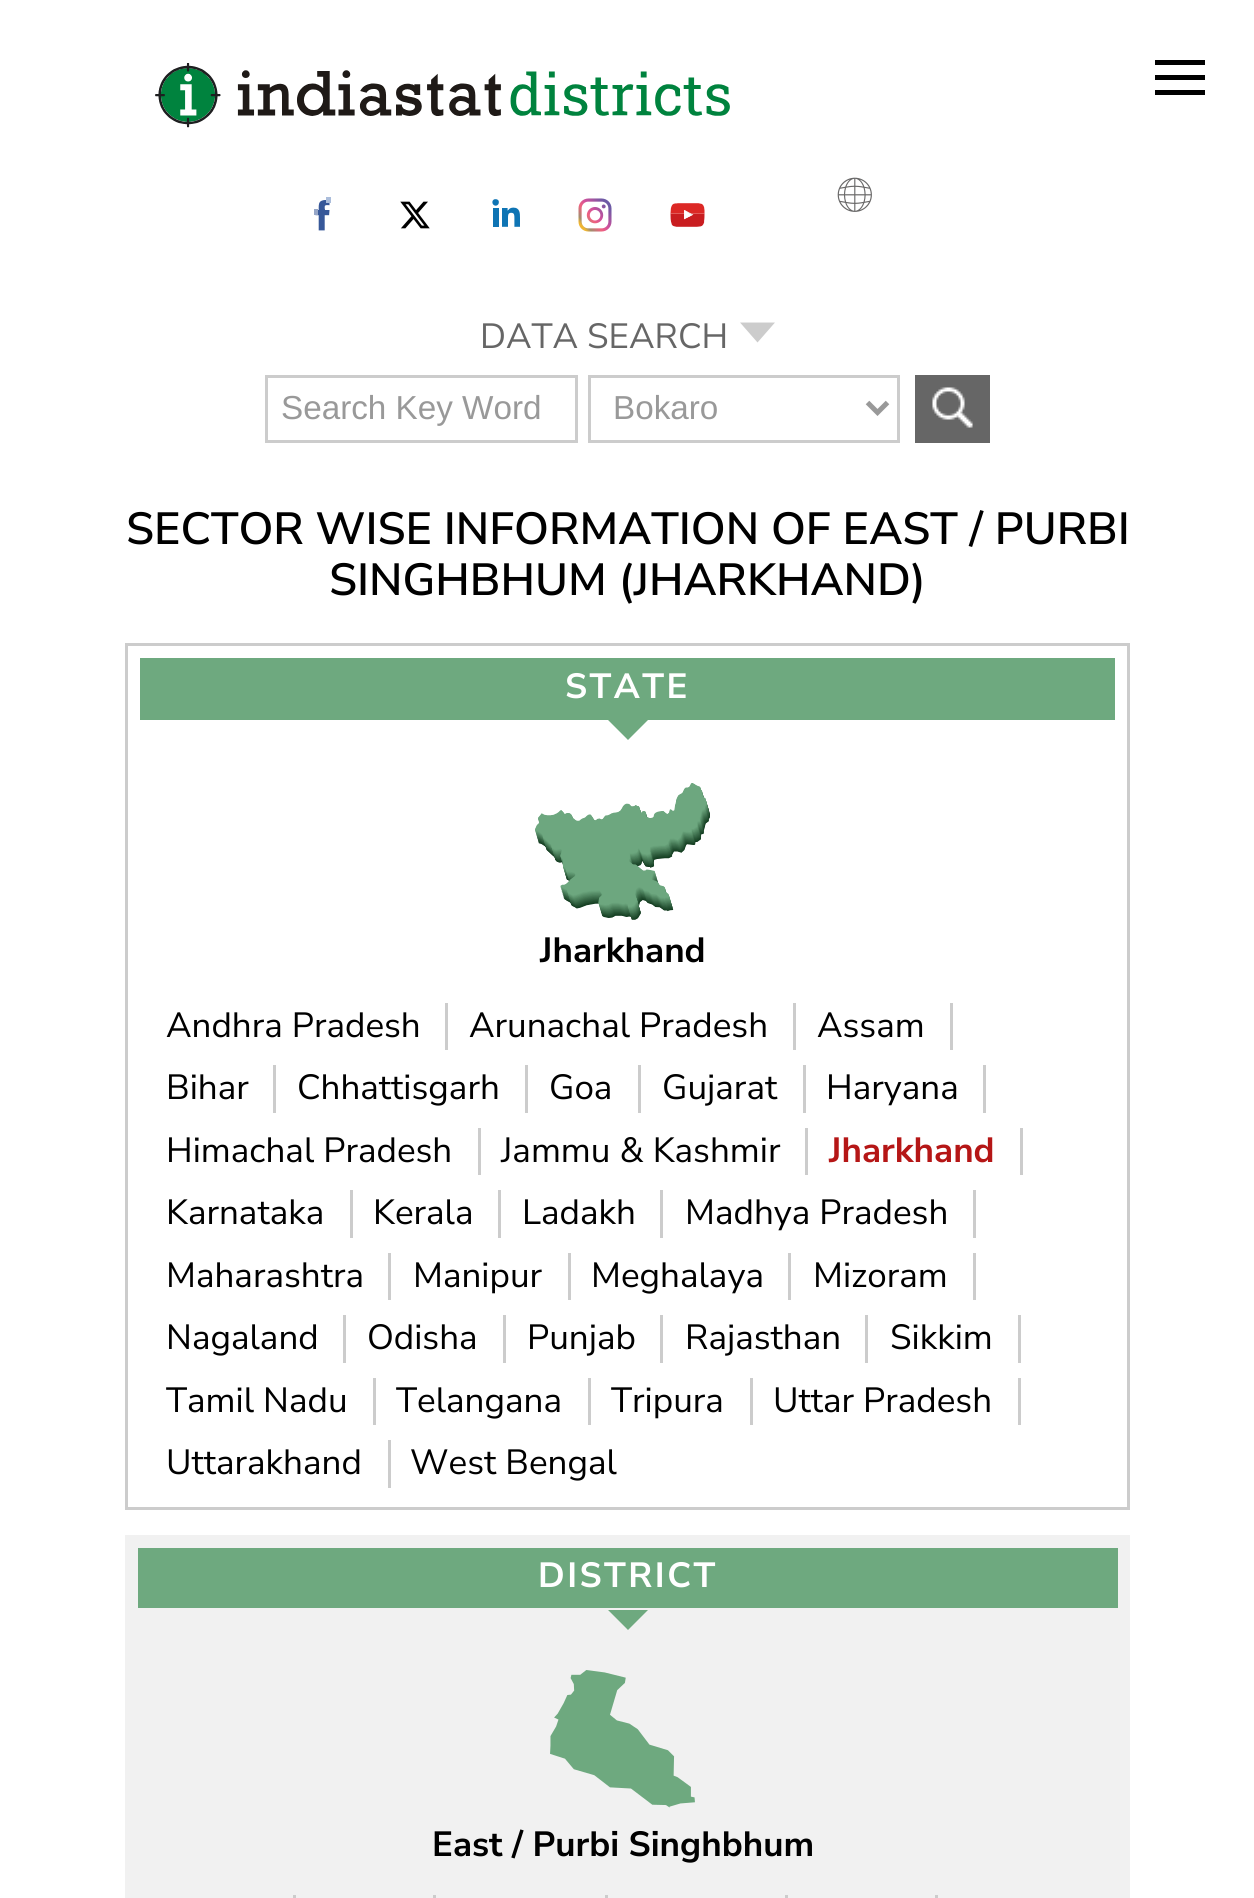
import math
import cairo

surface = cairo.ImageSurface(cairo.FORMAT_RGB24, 1254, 1898)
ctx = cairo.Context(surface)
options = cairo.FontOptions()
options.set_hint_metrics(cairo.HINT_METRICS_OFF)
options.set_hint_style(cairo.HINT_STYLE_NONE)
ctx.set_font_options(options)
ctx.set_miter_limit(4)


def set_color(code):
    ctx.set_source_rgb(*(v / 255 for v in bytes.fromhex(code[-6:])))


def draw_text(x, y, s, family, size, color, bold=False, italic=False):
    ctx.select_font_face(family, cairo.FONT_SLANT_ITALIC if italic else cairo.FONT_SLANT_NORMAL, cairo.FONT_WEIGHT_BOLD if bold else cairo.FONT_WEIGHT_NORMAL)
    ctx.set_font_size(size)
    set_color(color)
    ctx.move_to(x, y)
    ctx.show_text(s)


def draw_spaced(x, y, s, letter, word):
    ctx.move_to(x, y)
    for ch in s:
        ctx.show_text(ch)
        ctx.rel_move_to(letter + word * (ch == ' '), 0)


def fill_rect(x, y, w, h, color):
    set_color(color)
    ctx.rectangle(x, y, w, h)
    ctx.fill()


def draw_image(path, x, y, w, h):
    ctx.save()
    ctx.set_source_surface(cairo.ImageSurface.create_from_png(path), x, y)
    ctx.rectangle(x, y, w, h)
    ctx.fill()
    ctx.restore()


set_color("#ffffff")
ctx.paint()
fill_rect(1155, 60, 50, 5, "#000000")
fill_rect(1155, 75, 50, 5, "#000000")
fill_rect(1155, 90, 50, 5, "#000000")
draw_image("assets/img1.png", 314, 197, 17, 34)
draw_image("assets/img2.png", 400, 201, 30, 28)
draw_image("assets/img3.png", 492, 199, 28, 28)
draw_image("assets/img4.png", 578, 198, 34, 34)
draw_image("assets/img5.png", 670, 203, 35, 24)
draw_image("assets/img6.png", 837, 177, 35, 35)
draw_image("assets/img7.png", 155, 63, 575, 65)
draw_text(480, 348, "DATA SEARCH", "Nunito Sans", 35, "#666666")
set_color("#cccccc")
ctx.new_path()
ctx.move_to(740, 322.5)
ctx.line_to(775, 322.5)
ctx.line_to(757.5, 342.5)
ctx.close_path()
ctx.fill()
ctx.rectangle(266.5, 376.5, 310, 65)
ctx.set_line_width(3)
ctx.stroke()
draw_text(281, 419, "Search Key Word", "Liberation Sans", 33.25, "#999999")
ctx.rectangle(589.5, 376.5, 309, 65)
set_color("#cccccc")
ctx.stroke()
ctx.new_path()
ctx.move_to(867.5, 402.5)
ctx.line_to(877.5, 412.5)
ctx.line_to(887.5, 402.5)
set_color("#999999")
ctx.set_line_width(5)
ctx.stroke()
draw_text(613, 419, "Bokaro", "Liberation Sans", 33.25, "#999999")
fill_rect(915, 375, 75, 68, "#666666")
draw_image("assets/img8.png", 932, 387, 41, 41)
draw_text(126, 544, "SECTOR WISE INFORMATION OF EAST / PURBI", "Nunito Sans SemiBold", 45, "#000000")
draw_text(329, 595, "SINGHBHUM (JHARKHAND)", "Nunito Sans SemiBold", 45, "#000000")
ctx.rectangle(126.5, 644.5, 1002, 864)
set_color("#cccccc")
ctx.set_line_width(3)
ctx.stroke()
fill_rect(140, 658, 975, 62, "#6ea97f")
ctx.select_font_face("Nunito Sans", cairo.FONT_SLANT_NORMAL, cairo.FONT_WEIGHT_BOLD)
ctx.set_font_size(35)
set_color("#ffffff")
draw_spaced(565, 698, "STATE", 2.5, 0)
set_color("#6ea97f")
ctx.new_path()
ctx.move_to(608, 720)
ctx.line_to(648, 720)
ctx.line_to(628, 740)
ctx.close_path()
ctx.fill()
draw_image("assets/img9.png", 535, 783, 175, 137)
draw_text(540, 962, "Jharkhand", "Nunito Sans", 35, "#000000", bold=True)
draw_text(166, 1037, "Andhra Pradesh", "Nunito Sans", 35, "#000000")
fill_rect(445, 1003, 3, 47, "#cccccc")
draw_text(469, 1037, "Arunachal Pradesh", "Nunito Sans", 35, "#000000")
fill_rect(793, 1003, 3, 47, "#cccccc")
draw_text(817, 1037, "Assam", "Nunito Sans", 35, "#000000")
fill_rect(950, 1003, 3, 47, "#cccccc")
draw_text(166, 1099, "Bihar", "Nunito Sans", 35, "#000000")
fill_rect(273, 1065, 3, 48, "#cccccc")
draw_text(297, 1099, "Chhattisgarh", "Nunito Sans", 35, "#000000")
fill_rect(525, 1065, 3, 48, "#cccccc")
draw_text(549, 1099, "Goa", "Nunito Sans", 35, "#000000")
fill_rect(638, 1065, 3, 48, "#cccccc")
draw_text(662, 1099, "Gujarat", "Nunito Sans", 35, "#000000")
fill_rect(803, 1065, 3, 48, "#cccccc")
draw_text(826, 1099, "Haryana", "Nunito Sans", 35, "#000000")
fill_rect(983, 1065, 3, 48, "#cccccc")
draw_text(166, 1162, "Himachal Pradesh", "Nunito Sans", 35, "#000000")
fill_rect(478, 1128, 3, 47, "#cccccc")
draw_text(501, 1162, "Jammu & Kashmir", "Nunito Sans", 35, "#000000")
fill_rect(805, 1128, 3, 47, "#cccccc")
draw_text(829, 1162, "Jharkhand", "Nunito Sans", 35, "#b51616", bold=True)
fill_rect(1020, 1128, 3, 47, "#cccccc")
draw_text(166, 1224, "Karnataka", "Nunito Sans", 35, "#000000")
fill_rect(350, 1190, 3, 48, "#cccccc")
draw_text(373, 1224, "Kerala", "Nunito Sans", 35, "#000000")
fill_rect(498, 1190, 3, 48, "#cccccc")
draw_text(522, 1224, "Ladakh", "Nunito Sans", 35, "#000000")
fill_rect(660, 1190, 3, 48, "#cccccc")
draw_text(685, 1224, "Madhya Pradesh", "Nunito Sans", 35, "#000000")
fill_rect(973, 1190, 3, 48, "#cccccc")
draw_text(166, 1287, "Maharashtra", "Nunito Sans", 35, "#000000")
fill_rect(388, 1253, 3, 47, "#cccccc")
draw_text(413, 1287, "Manipur", "Nunito Sans", 35, "#000000")
fill_rect(568, 1253, 3, 47, "#cccccc")
draw_text(591, 1287, "Meghalaya", "Nunito Sans", 35, "#000000")
fill_rect(788, 1253, 3, 47, "#cccccc")
draw_text(813, 1287, "Mizoram", "Nunito Sans", 35, "#000000")
fill_rect(973, 1253, 3, 47, "#cccccc")
draw_text(166, 1349, "Nagaland", "Nunito Sans", 35, "#000000")
fill_rect(343, 1315, 3, 48, "#cccccc")
draw_text(367, 1349, "Odisha", "Nunito Sans", 35, "#000000")
fill_rect(503, 1315, 3, 48, "#cccccc")
draw_text(527, 1349, "Punjab", "Nunito Sans", 35, "#000000")
fill_rect(660, 1315, 3, 48, "#cccccc")
draw_text(685, 1349, "Rajasthan", "Nunito Sans", 35, "#000000")
fill_rect(865, 1315, 3, 48, "#cccccc")
draw_text(890, 1349, "Sikkim", "Nunito Sans", 35, "#000000")
fill_rect(1018, 1315, 3, 48, "#cccccc")
draw_text(166, 1412, "Tamil Nadu", "Nunito Sans", 35, "#000000")
fill_rect(373, 1378, 3, 47, "#cccccc")
draw_text(396, 1412, "Telangana", "Nunito Sans", 35, "#000000")
fill_rect(588, 1378, 3, 47, "#cccccc")
draw_text(611, 1412, "Tripura", "Nunito Sans", 35, "#000000")
fill_rect(750, 1378, 3, 47, "#cccccc")
draw_text(773, 1412, "Uttar Pradesh", "Nunito Sans", 35, "#000000")
fill_rect(1018, 1378, 3, 47, "#cccccc")
draw_text(166, 1474, "Uttarakhand", "Nunito Sans", 35, "#000000")
fill_rect(388, 1440, 3, 48, "#cccccc")
draw_text(410, 1474, "West Bengal", "Nunito Sans", 35, "#000000")
fill_rect(125, 1535, 1005, 363, "#f1f1f1")
fill_rect(138, 1548, 980, 60, "#6ea97f")
ctx.select_font_face("Nunito Sans", cairo.FONT_SLANT_NORMAL, cairo.FONT_WEIGHT_BOLD)
set_color("#ffffff")
draw_spaced(538, 1587, "DISTRICT", 2.5, 0)
set_color("#6ea97f")
ctx.new_path()
ctx.move_to(608, 1610)
ctx.line_to(648, 1610)
ctx.line_to(628, 1630)
ctx.close_path()
ctx.fill()
draw_image("assets/img10.png", 550, 1670, 145, 138)
draw_text(432, 1856, "East / Purbi Singhbhum", "Nunito Sans", 35, "#000000", bold=True)
fill_rect(293, 1895, 3, 3, "#cccccc")
fill_rect(433, 1895, 3, 3, "#cccccc")
fill_rect(605, 1895, 3, 3, "#cccccc")
fill_rect(785, 1895, 3, 3, "#cccccc")
fill_rect(935, 1895, 3, 3, "#cccccc")
surface.write_to_png("output.png")
